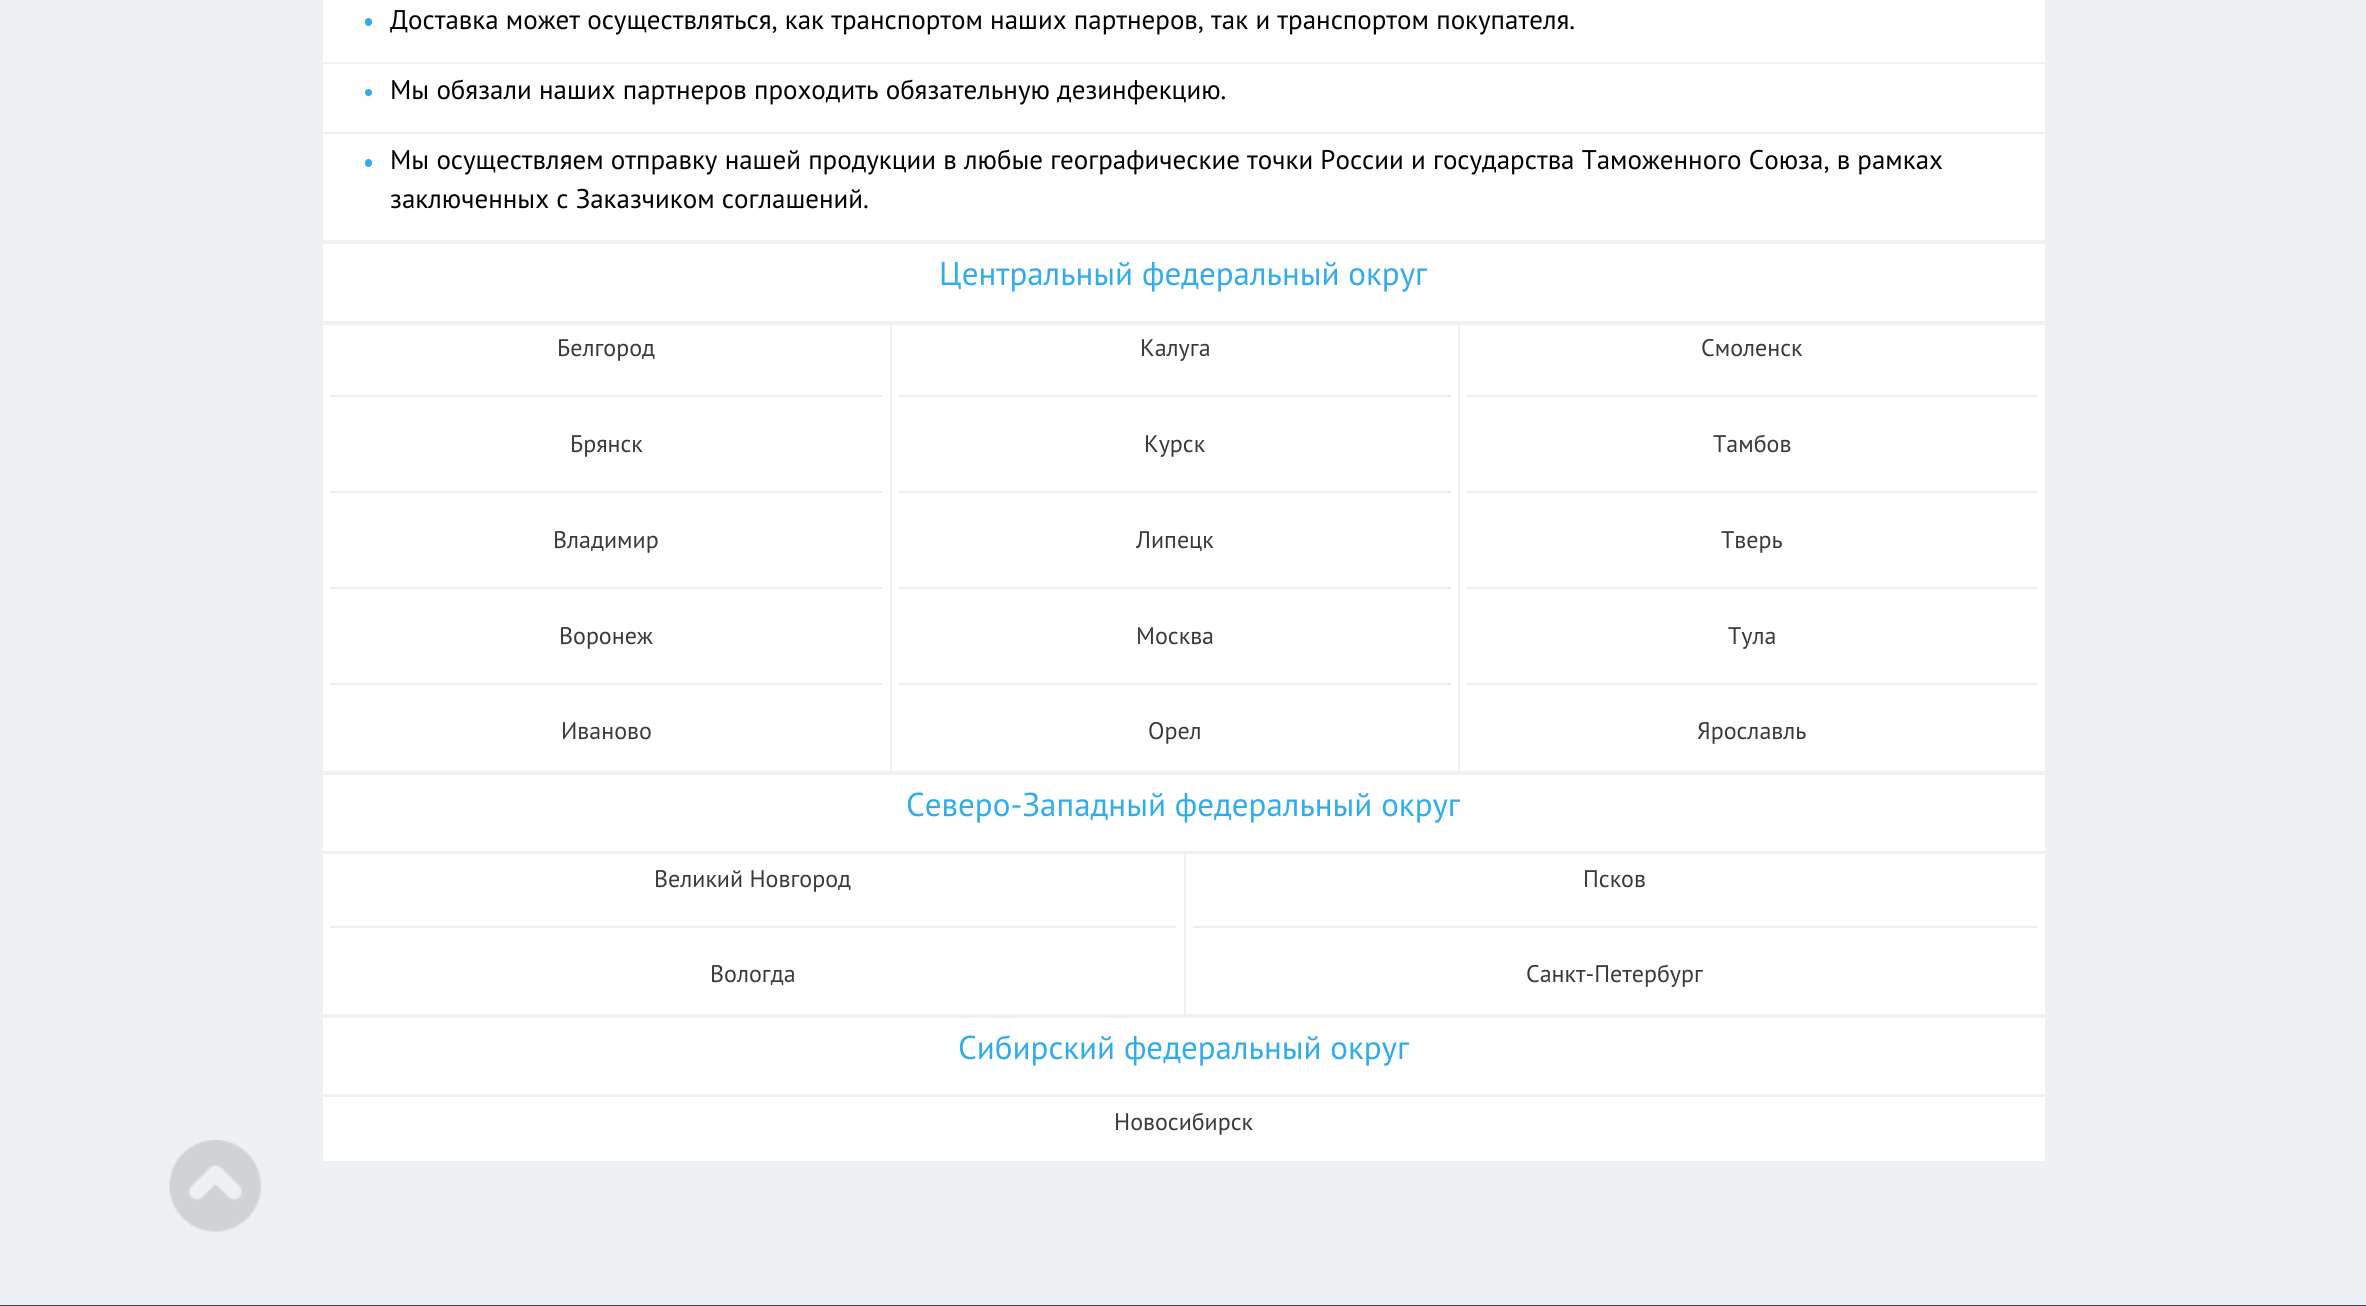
import math
import cairo

surface = cairo.ImageSurface(cairo.FORMAT_RGB24, 2366, 1306)
ctx = cairo.Context(surface)
options = cairo.FontOptions()
options.set_hint_metrics(cairo.HINT_METRICS_OFF)
options.set_hint_style(cairo.HINT_STYLE_NONE)
ctx.set_font_options(options)
ctx.set_miter_limit(4)


def set_color(code):
    ctx.set_source_rgb(*(v / 255 for v in bytes.fromhex(code[-6:])))


def draw_text(x, y, s, family, size, color, bold=False, italic=False):
    ctx.select_font_face(family, cairo.FONT_SLANT_ITALIC if italic else cairo.FONT_SLANT_NORMAL, cairo.FONT_WEIGHT_BOLD if bold else cairo.FONT_WEIGHT_NORMAL)
    ctx.set_font_size(size)
    set_color(color)
    ctx.move_to(x, y)
    ctx.show_text(s)


def fill_rect(x, y, w, h, color):
    set_color(color)
    ctx.rectangle(x, y, w, h)
    ctx.fill()


def rounded_rect(x, y, w, h, r):
    ctx.new_sub_path()
    for i, (u, v) in enumerate([(x + w - r, y + h - r), (x + r, y + h - r), (x + r, y + r), (x + w - r, y + r)]):
        ctx.arc(u, v, r, i * math.pi / 2, (i + 1) * math.pi / 2)
    ctx.close_path()


def draw_image(path, x, y, w, h):
    ctx.save()
    ctx.set_source_surface(cairo.ImageSurface.create_from_png(path), x, y)
    ctx.rectangle(x, y, w, h)
    ctx.fill()
    ctx.restore()


set_color("#eef1f3")
ctx.paint()
fill_rect(323, 0, 1722, 62, "#ffffff")
set_color("#30acec")
rounded_rect(365, 18, 7, 8, 3.5)
ctx.fill()
draw_text(390, 29, "Доставка может осуществляться, как транспортом наших партнеров, так и транспортом покупателя.", "PT Sans", 27, "#000000")
fill_rect(323, 64, 1722, 68, "#ffffff")
set_color("#30acec")
ctx.new_path()
ctx.arc(368.5, 92.5, 3.5, 0, 2 * math.pi)
ctx.fill()
draw_text(390, 99, "Мы обязали наших партнеров проходить обязательную дезинфекцию.", "PT Sans", 27, "#000000")
fill_rect(323, 134, 1722, 106, "#ffffff")
set_color("#30acec")
rounded_rect(365, 159, 7, 8, 3.5)
ctx.fill()
draw_text(390, 169, "Мы осуществляем отправку нашей продукции в любые географические точки России и государства Таможенного Союза, в рамках", "PT Sans", 27, "#000000")
draw_text(390, 208, "заключенных с Заказчиком соглашений.", "PT Sans", 27, "#000000")
fill_rect(323, 244, 1722, 77, "#ffffff")
draw_text(939, 285, "Центральный федеральный округ", "PT Sans", 33, "#30acec")
fill_rect(323, 325, 567, 446, "#ffffff")
draw_text(557, 356, "Белгород", "PT Sans", 24, "#3a3a3c")
fill_rect(330, 395, 552, 2, "#eeeeee")
draw_text(570, 452, "Брянск", "PT Sans", 24, "#3a3a3c")
fill_rect(330, 491, 552, 2, "#eeeeee")
draw_text(553, 548, "Владимир", "PT Sans", 24, "#3a3a3c")
fill_rect(330, 587, 552, 2, "#eeeeee")
draw_text(559, 644, "Воронеж", "PT Sans", 24, "#3a3a3c")
fill_rect(330, 683, 552, 2, "#eeeeee")
draw_text(561, 739, "Иваново", "PT Sans", 24, "#3a3a3c")
fill_rect(892, 325, 566, 446, "#ffffff")
draw_text(1140, 356, "Калуга", "PT Sans", 24, "#3a3a3c")
fill_rect(899, 395, 552, 2, "#eeeeee")
draw_text(1144, 452, "Курск", "PT Sans", 24, "#3a3a3c")
fill_rect(899, 491, 552, 2, "#eeeeee")
draw_text(1136, 548, "Липецк", "PT Sans", 24, "#3a3a3c")
fill_rect(899, 587, 552, 2, "#eeeeee")
draw_text(1136, 644, "Москва", "PT Sans", 24, "#3a3a3c")
fill_rect(899, 683, 552, 2, "#eeeeee")
draw_text(1148, 739, "Орел", "PT Sans", 24, "#3a3a3c")
fill_rect(1460, 325, 585, 446, "#ffffff")
draw_text(1701, 356, "Смоленск", "PT Sans", 24, "#3a3a3c")
fill_rect(1467, 395, 570, 2, "#eeeeee")
draw_text(1713, 452, "Тамбов", "PT Sans", 24, "#3a3a3c")
fill_rect(1467, 491, 570, 2, "#eeeeee")
draw_text(1721, 548, "Тверь", "PT Sans", 24, "#3a3a3c")
fill_rect(1467, 587, 570, 2, "#eeeeee")
draw_text(1728, 644, "Тула", "PT Sans", 24, "#3a3a3c")
fill_rect(1467, 683, 570, 2, "#eeeeee")
draw_text(1697, 739, "Ярославль", "PT Sans", 24, "#3a3a3c")
fill_rect(323, 775, 1722, 76, "#ffffff")
draw_text(906, 816, "Северо-Западный федеральный округ", "PT Sans", 33, "#30acec")
fill_rect(323, 854, 861, 160, "#ffffff")
draw_text(654, 887, "Великий Новгород", "PT Sans", 24, "#3a3a3c")
fill_rect(330, 926, 846, 2, "#eeeeee")
draw_text(710, 982, "Вологда", "PT Sans", 24, "#3a3a3c")
fill_rect(1186, 854, 859, 160, "#ffffff")
draw_text(1583, 887, "Псков", "PT Sans", 24, "#3a3a3c")
fill_rect(1193, 926, 844, 2, "#eeeeee")
draw_text(1526, 982, "Санкт-Петербург", "PT Sans", 24, "#3a3a3c")
fill_rect(323, 1018, 1722, 76, "#ffffff")
draw_text(958, 1059, "Сибирский федеральный округ", "PT Sans", 33, "#30acec")
fill_rect(323, 1097, 1722, 64, "#ffffff")
draw_text(1114, 1130, "Новосибирск", "PT Sans", 24, "#3a3a3c")
draw_image("assets/img1.png", 169, 1140, 93, 92)
fill_rect(0, 1305, 2366, 1, "#3d484e")
surface.write_to_png("output.png")
